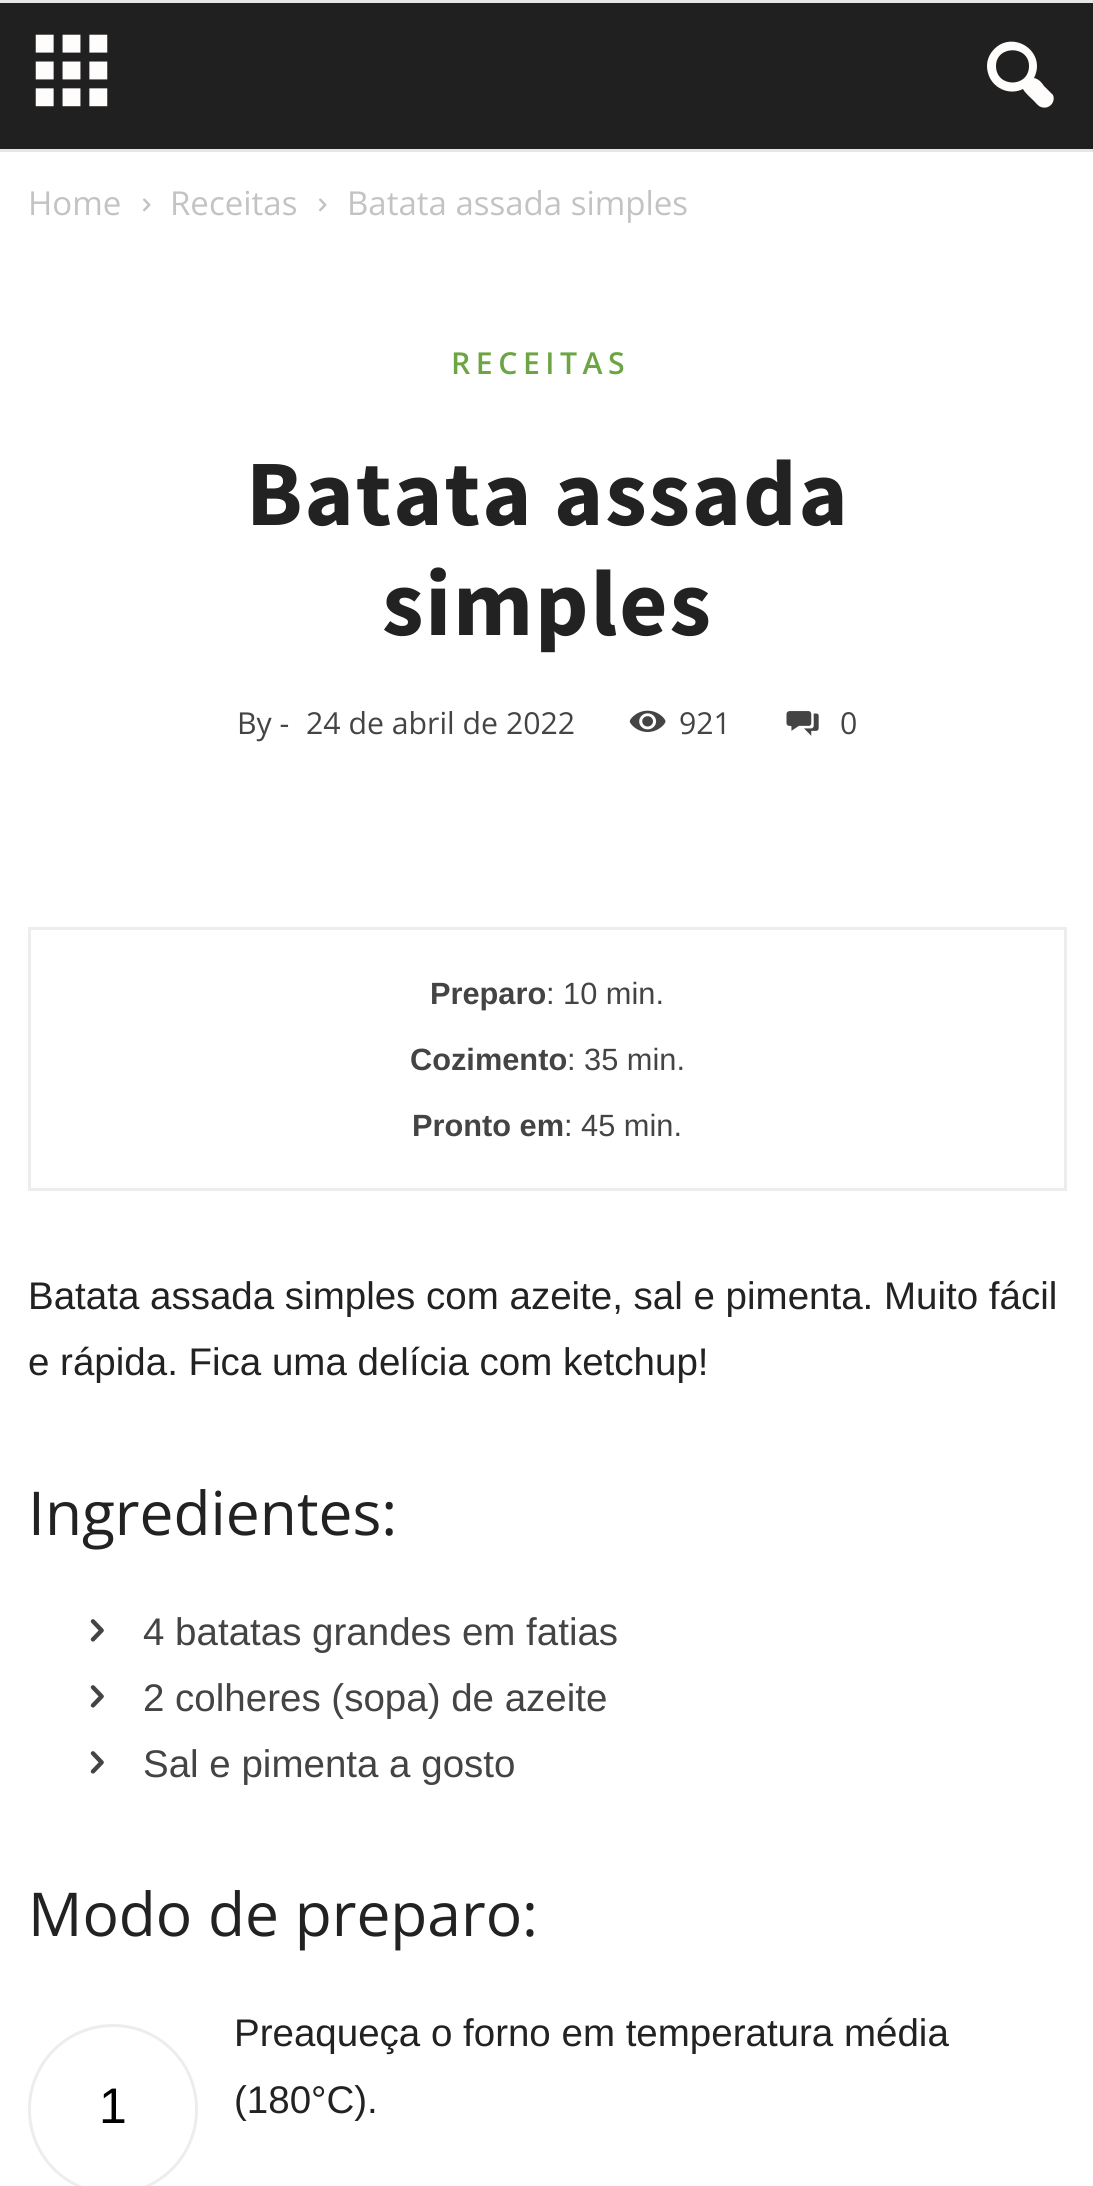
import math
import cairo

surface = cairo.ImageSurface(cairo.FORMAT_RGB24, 1093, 2186)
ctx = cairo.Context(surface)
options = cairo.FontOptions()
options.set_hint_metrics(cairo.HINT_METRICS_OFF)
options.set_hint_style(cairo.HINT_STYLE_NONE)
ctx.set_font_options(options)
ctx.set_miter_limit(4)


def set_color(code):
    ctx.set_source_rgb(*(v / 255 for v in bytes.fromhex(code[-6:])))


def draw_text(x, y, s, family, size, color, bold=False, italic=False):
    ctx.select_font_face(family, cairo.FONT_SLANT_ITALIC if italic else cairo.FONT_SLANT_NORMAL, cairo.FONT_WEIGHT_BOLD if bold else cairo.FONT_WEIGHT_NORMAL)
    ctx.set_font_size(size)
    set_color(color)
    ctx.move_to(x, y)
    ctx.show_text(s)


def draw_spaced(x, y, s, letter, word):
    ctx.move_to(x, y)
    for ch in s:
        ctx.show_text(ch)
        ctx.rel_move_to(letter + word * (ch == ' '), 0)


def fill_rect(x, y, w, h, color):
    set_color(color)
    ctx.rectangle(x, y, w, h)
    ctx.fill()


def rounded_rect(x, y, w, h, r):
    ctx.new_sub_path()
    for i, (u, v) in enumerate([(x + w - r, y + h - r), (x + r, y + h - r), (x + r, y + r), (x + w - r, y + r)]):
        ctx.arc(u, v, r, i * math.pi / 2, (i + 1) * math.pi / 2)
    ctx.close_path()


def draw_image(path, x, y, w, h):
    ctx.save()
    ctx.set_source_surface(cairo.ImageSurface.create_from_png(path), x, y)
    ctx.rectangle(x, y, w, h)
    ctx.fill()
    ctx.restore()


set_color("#ffffff")
ctx.paint()
fill_rect(0, 3, 1093, 146, "#212020")
fill_rect(0, 0, 1093, 3, "#e6e6e6")
fill_rect(0, 149, 1093, 3, "#e6e6e6")
draw_image("assets/img1.png", 35, 34, 73, 73)
set_color("#fffcfc")
ctx.new_path()
ctx.move_to(988, 73)
ctx.curve_to(986, 66, 987, 59, 991, 53)
ctx.curve_to(1009, 27, 1048, 50, 1034, 78)
ctx.curve_to(1039, 79, 1042, 83, 1044, 86)
ctx.line_to(1053, 95)
ctx.curve_to(1056, 102, 1049, 110, 1041, 107)
ctx.curve_to(1038, 106, 1036, 103, 1034, 101)
ctx.curve_to(1031, 98, 1025, 93, 1023, 89)
ctx.curve_to(1009, 96, 992, 88, 988, 73)
ctx.close_path()
ctx.move_to(996, 66)
ctx.curve_to(996, 88, 1029, 88, 1029, 66)
ctx.curve_to(1029, 45, 996, 45, 996, 66)
ctx.close_path()
ctx.fill()
draw_text(28, 215, "Home", "Open Sans", 33, "#c3c3c3")
draw_image("assets/img2.png", 143, 198, 8, 14)
draw_text(170, 215, "Receitas", "Open Sans", 33, "#c3c3c3")
draw_image("assets/img2.png", 319, 198, 8, 14)
draw_text(347, 215, "Batata assada simples", "Open Sans", 33, "#c3c3c3")
ctx.select_font_face("Open Sans SemiBold")
ctx.set_font_size(30.25)
set_color("#6da544")
draw_spaced(451, 374, "RECEITAS", 5.5, 0)
ctx.select_font_face("Source Sans Pro", cairo.FONT_SLANT_NORMAL, cairo.FONT_WEIGHT_BOLD)
ctx.set_font_size(93.5)
set_color("#222222")
draw_spaced(246, 525, "Batata assada", 1.9, 0)
draw_spaced(382, 635, "simples", 1.9, 0)
draw_text(237, 734, "By -", "Open Sans", 30.25, "#444444")
draw_text(306, 734, "24 de abril de 2022", "Open Sans", 30.25, "#444444")
draw_image("assets/img3.png", 629, 710, 37, 22)
draw_text(679, 734, "921", "Open Sans", 30.25, "#444444")
draw_image("assets/img4.png", 786, 711, 33, 25)
draw_text(840, 734, "0", "Open Sans", 30.25, "#444444")
ctx.rectangle(29.5, 928.5, 1036, 261)
set_color("#ededed")
ctx.set_line_width(3)
ctx.stroke()
draw_text(430, 1004, "Preparo", "Liberation Sans", 30.75, "#444444", bold=True)
draw_text(546, 1004, ": 10 min.", "Liberation Sans", 30.75, "#444444")
draw_text(410, 1070, "Cozimento", "Liberation Sans", 30.75, "#444444", bold=True)
draw_text(567, 1070, ": 35 min.", "Liberation Sans", 30.75, "#444444")
draw_text(412, 1136, "Pronto em", "Liberation Sans", 30.75, "#444444", bold=True)
draw_text(564, 1136, ": 45 min.", "Liberation Sans", 30.75, "#444444")
draw_text(28, 1309, "Batata assada simples com azeite, sal e pimenta. Muito fácil", "Liberation Sans", 38.5, "#222222")
draw_text(28, 1375, "e rápida. Fica uma delícia com ketchup!", "Liberation Sans", 38.5, "#222222")
draw_text(28, 1535, "Ingredientes:", "Open Sans", 60.5, "#222222")
draw_image("assets/img5.png", 90, 1619, 14, 23)
draw_text(143, 1645, "4 batatas grandes em fatias", "Liberation Sans", 38.5, "#444444")
draw_image("assets/img5.png", 90, 1685, 14, 23)
draw_text(143, 1711, "2 colheres (sopa) de azeite", "Liberation Sans", 38.5, "#444444")
draw_image("assets/img5.png", 90, 1751, 14, 23)
draw_text(143, 1777, "Sal e pimenta a gosto", "Liberation Sans", 38.5, "#444444")
draw_text(28, 1936, "Modo de preparo:", "Open Sans", 60.5, "#222222")
draw_text(234, 2046, "Preaqueça o forno em temperatura média", "Liberation Sans", 38.5, "#222222")
rounded_rect(29.5, 2025.5, 167, 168, 83.5)
set_color("#ededed")
ctx.stroke()
draw_text(99, 2123, "1", "Liberation Sans", 50, "#000000")
draw_text(234, 2113, "(180°C).", "Liberation Sans", 38.5, "#222222")
surface.write_to_png("output.png")
